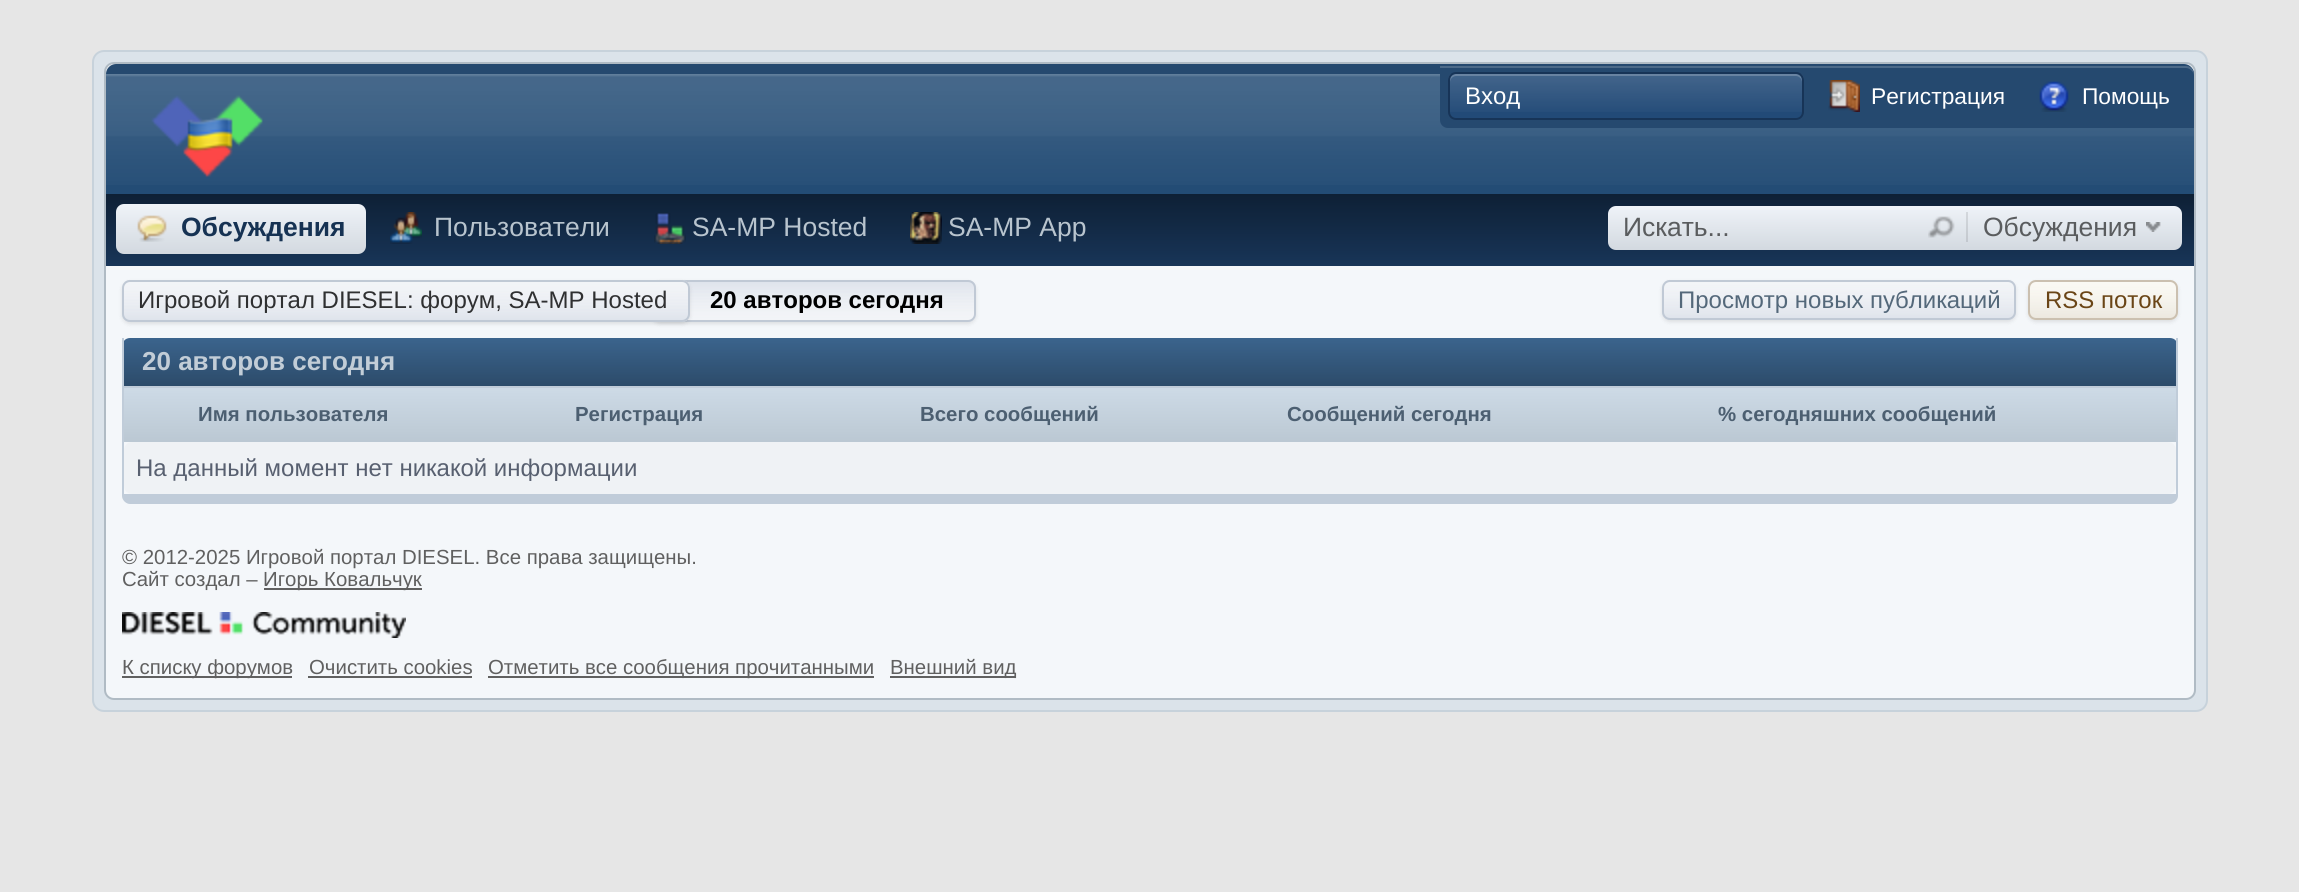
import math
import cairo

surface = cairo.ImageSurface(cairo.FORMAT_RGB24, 2299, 892)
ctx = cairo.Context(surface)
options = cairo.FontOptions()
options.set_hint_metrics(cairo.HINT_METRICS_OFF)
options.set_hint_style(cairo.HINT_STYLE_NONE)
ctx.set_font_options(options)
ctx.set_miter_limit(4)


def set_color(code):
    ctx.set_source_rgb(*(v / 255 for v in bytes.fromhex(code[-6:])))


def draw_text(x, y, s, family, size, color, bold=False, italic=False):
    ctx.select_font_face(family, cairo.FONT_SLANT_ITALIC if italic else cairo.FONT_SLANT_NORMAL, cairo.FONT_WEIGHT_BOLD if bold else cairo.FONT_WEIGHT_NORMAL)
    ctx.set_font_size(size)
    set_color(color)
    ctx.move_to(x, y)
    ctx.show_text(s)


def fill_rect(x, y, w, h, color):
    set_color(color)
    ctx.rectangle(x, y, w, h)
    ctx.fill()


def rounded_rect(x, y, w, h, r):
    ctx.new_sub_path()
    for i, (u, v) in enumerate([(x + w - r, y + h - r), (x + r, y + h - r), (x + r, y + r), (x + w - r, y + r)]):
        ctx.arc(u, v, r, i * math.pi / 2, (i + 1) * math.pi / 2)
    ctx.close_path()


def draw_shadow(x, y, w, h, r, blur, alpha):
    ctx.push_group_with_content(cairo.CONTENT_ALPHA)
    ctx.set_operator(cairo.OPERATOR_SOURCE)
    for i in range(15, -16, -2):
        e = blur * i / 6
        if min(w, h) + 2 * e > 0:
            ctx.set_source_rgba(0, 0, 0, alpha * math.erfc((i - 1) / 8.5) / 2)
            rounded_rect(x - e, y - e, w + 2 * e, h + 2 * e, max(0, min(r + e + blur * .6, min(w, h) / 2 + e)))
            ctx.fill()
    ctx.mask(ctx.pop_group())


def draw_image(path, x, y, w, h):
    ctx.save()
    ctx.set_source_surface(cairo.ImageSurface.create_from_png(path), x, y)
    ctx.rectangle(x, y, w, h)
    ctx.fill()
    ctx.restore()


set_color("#e6e6e6")
ctx.paint()
set_color("#dbe3ea")
rounded_rect(93, 51, 2114, 660, 11)
ctx.fill_preserve()
set_color("#c7d2db")
ctx.stroke()
set_color("#f4f7fa")
rounded_rect(105, 63, 2090, 636, 9)
ctx.fill_preserve()
set_color("#b0bbc4")
ctx.stroke()
set_color("#25496f")
ctx.new_path()
ctx.move_to(116, 64)
ctx.line_to(2184, 64)
ctx.curve_to(2189.5, 64, 2194, 68.5, 2194, 74)
ctx.line_to(106, 74)
ctx.curve_to(106, 68.5, 110.5, 64, 116, 64)
ctx.close_path()
ctx.fill()
fill_rect(106, 74, 2088, 120, "#234c75")
draw_image("assets/img1.png", 106, 74, 2088, 111)
draw_image("assets/img2.png", 151, 95, 112, 83)
set_color("#25496f")
ctx.new_path()
ctx.move_to(1440, 66)
ctx.line_to(2186, 66)
ctx.curve_to(2190.5, 66, 2194, 69.5, 2194, 74)
ctx.line_to(2194, 128)
ctx.line_to(1448, 128)
ctx.curve_to(1443.5, 128, 1440, 124.5, 1440, 120)
ctx.close_path()
ctx.fill()
ctx.set_source_rgba(1, 1, 1, 0.18)
ctx.new_path()
ctx.move_to(1440, 68)
ctx.line_to(2186, 68)
ctx.curve_to(2190, 68, 2194, 72, 2194, 76)
ctx.curve_to(2194, 71, 2192, 66, 2186, 66)
ctx.line_to(1440, 66)
ctx.close_path()
ctx.fill()
set_color("#224a77")
rounded_rect(1448, 72, 356, 48, 8)
ctx.fill()
ctx.save()
rounded_rect(1448, 72, 356, 48, 8)
ctx.clip()
gradient = cairo.LinearGradient(1450, 74, 1450, 118)
gradient.add_color_stop_rgba(0, 1, 1, 1, 0.15)
gradient.add_color_stop_rgba(1, 1, 1, 1, 0)
ctx.set_source(gradient)
ctx.rectangle(1448, 74, 356, 38)
ctx.fill()
ctx.restore()
ctx.set_source_rgba(1, 1, 1, 0.2)
ctx.new_path()
ctx.move_to(1456, 76)
ctx.line_to(1796, 76)
ctx.curve_to(1799, 76, 1802, 79, 1802, 82)
ctx.line_to(1802, 80)
ctx.curve_to(1802, 77, 1799, 74, 1796, 74)
ctx.line_to(1456, 74)
ctx.curve_to(1453, 74, 1450, 77, 1450, 80)
ctx.line_to(1450, 82)
ctx.curve_to(1450, 79, 1453, 76, 1456, 76)
ctx.close_path()
ctx.fill()
rounded_rect(1449, 73, 354, 46, 7)
set_color("#173457")
ctx.stroke()
draw_text(1465, 104, "Вход", "Liberation Sans", 24, "#ffffff")
draw_image("assets/img3.png", 1828, 80, 32, 32)
draw_text(1871, 104, "Регистрация", "Liberation Sans", 22.75, "#ffffff")
draw_image("assets/img4.png", 2039, 81, 30, 31)
draw_text(2082, 104, "Помощь", "Liberation Sans", 22.75, "#ffffff")
gradient = cairo.LinearGradient(106, 194, 106, 266)
gradient.add_color_stop_rgba(0, 0.055, 0.125, 0.208, 1)
gradient.add_color_stop_rgba(1, 0.094, 0.208, 0.345, 1)
ctx.set_source(gradient)
ctx.rectangle(106, 194, 2088, 72)
ctx.fill()
gradient = cairo.LinearGradient(116, 204, 116, 254)
gradient.add_color_stop_rgba(0, 0.937, 0.953, 0.973, 1)
gradient.add_color_stop_rgba(1, 0.827, 0.851, 0.878, 1)
ctx.set_source(gradient)
rounded_rect(116, 204, 250, 50, 8)
ctx.fill()
draw_image("assets/img5.png", 137, 215, 30, 27)
draw_text(181, 236, "Обсуждения", "Liberation Sans", 26.5, "#163253", bold=True)
draw_image("assets/img6.png", 390, 212, 32, 32)
draw_text(434, 236, "Пользователи", "Liberation Sans", 26.5, "#b8c4ce")
draw_image("assets/img7.png", 654, 213, 32, 31)
draw_text(692, 236, "SA-MP Hosted", "Liberation Sans", 26.5, "#b8c4ce")
draw_image("assets/img8.png", 910, 212, 32, 32)
draw_text(948, 236, "SA-MP App", "Liberation Sans", 26.5, "#b8c4ce")
gradient = cairo.LinearGradient(1608, 206, 1608, 250)
gradient.add_color_stop_rgba(0, 0.937, 0.953, 0.973, 1)
gradient.add_color_stop_rgba(1, 0.827, 0.851, 0.878, 1)
ctx.set_source(gradient)
rounded_rect(1608, 206, 574, 44, 8)
ctx.fill()
gradient = cairo.LinearGradient(1608, 206, 1608, 250)
gradient.add_color_stop_rgba(0, 0.843, 0.859, 0.875, 1)
gradient.add_color_stop_rgba(1, 0.745, 0.765, 0.792, 1)
ctx.set_source(gradient)
ctx.rectangle(1966, 212, 2, 30)
ctx.fill()
draw_image("assets/img9.png", 1928, 216, 27, 22)
draw_text(1623, 236, "Искать...", "Liberation Sans", 26.5, "#5a5c5e")
draw_image("assets/img10.png", 2146, 222, 15, 10)
draw_text(1983, 236, "Обсуждения", "Liberation Sans", 26.5, "#5a5c5e")
set_color("#000000")
draw_shadow(652, 282, 324, 42, 8, 2, 0.1)
set_color("#dfe4ec")
rounded_rect(652, 280, 324, 42, 8)
ctx.fill()
ctx.save()
rounded_rect(652, 280, 324, 42, 8)
ctx.clip()
gradient = cairo.LinearGradient(654, 282, 654, 320)
gradient.add_color_stop_rgba(0, 0.875, 0.894, 0.925, 1)
gradient.add_color_stop_rgba(1, 1, 1, 1, 0.6)
ctx.set_source(gradient)
ctx.rectangle(687, 282, 289, 38)
ctx.fill()
ctx.restore()
rounded_rect(653, 281, 322, 40, 7)
set_color("#c0c9d5")
ctx.stroke()
set_color("#000000")
draw_shadow(122, 282, 568, 42, 8, 2, 0.1)
set_color("#dfe4ec")
rounded_rect(122, 280, 568, 42, 8)
ctx.fill()
ctx.save()
rounded_rect(122, 280, 568, 42, 8)
ctx.clip()
gradient = cairo.LinearGradient(124, 282, 124, 320)
gradient.add_color_stop_rgba(0, 1, 1, 1, 0.6)
gradient.add_color_stop_rgba(1, 0.875, 0.894, 0.925, 1)
ctx.set_source(gradient)
ctx.rectangle(122, 282, 568, 38)
ctx.fill()
ctx.restore()
rounded_rect(123, 281, 566, 40, 7)
set_color("#c0c9d5")
ctx.stroke()
draw_text(138, 308, "Игровой портал DIESEL: форум, SA-MP Hosted", "Liberation Sans", 24, "#2f3031")
draw_text(710, 308, "20 авторов сегодня", "Liberation Sans", 24, "#000000", bold=True)
set_color("#000000")
draw_shadow(1662, 282, 354, 40, 8, 2, 0.1)
set_color("#dfe4ec")
rounded_rect(1662, 280, 354, 40, 8)
ctx.fill()
ctx.save()
rounded_rect(1662, 280, 354, 40, 8)
ctx.clip()
gradient = cairo.LinearGradient(1664, 282, 1664, 318)
gradient.add_color_stop_rgba(0, 1, 1, 1, 0.6)
gradient.add_color_stop_rgba(1, 0.875, 0.894, 0.925, 1)
ctx.set_source(gradient)
ctx.rectangle(1662, 282, 354, 36)
ctx.fill()
ctx.restore()
rounded_rect(1663, 281, 352, 38, 7)
set_color("#c0c9d5")
ctx.stroke()
draw_text(1678, 308, "Просмотр новых публикаций", "Liberation Sans", 24, "#54687a")
set_color("#000000")
draw_shadow(2028, 282, 150, 40, 8, 2, 0.1)
set_color("#f3f0e2")
rounded_rect(2028, 280, 150, 40, 8)
ctx.fill()
ctx.save()
rounded_rect(2028, 280, 150, 40, 8)
ctx.clip()
gradient = cairo.LinearGradient(2030, 282, 2030, 318)
gradient.add_color_stop_rgba(0, 1, 1, 1, 0.6)
gradient.add_color_stop_rgba(1, 0.925, 0.91, 0.875, 1)
ctx.set_source(gradient)
ctx.rectangle(2028, 282, 150, 36)
ctx.fill()
ctx.restore()
rounded_rect(2029, 281, 148, 38, 7)
set_color("#cbc0b0")
ctx.stroke()
draw_text(2045, 308, "RSS поток", "Liberation Sans", 24, "#6a4516")
set_color("#c0ccd9")
ctx.set_fill_rule(cairo.FILL_RULE_EVEN_ODD)
ctx.new_path()
ctx.move_to(122, 338)
ctx.line_to(2178, 338)
ctx.line_to(2178, 496)
ctx.curve_to(2178, 500, 2174, 504, 2170, 504)
ctx.line_to(130, 504)
ctx.curve_to(126, 504, 122, 500, 122, 496)
ctx.close_path()
ctx.move_to(124, 338)
ctx.line_to(2176, 338)
ctx.line_to(2176, 494)
ctx.line_to(124, 494)
ctx.close_path()
ctx.fill()
set_color("#3b648d")
ctx.set_fill_rule(cairo.FILL_RULE_WINDING)
ctx.new_path()
ctx.move_to(130, 338)
ctx.curve_to(128, 338, 125, 339, 124, 341)
ctx.line_to(124, 386)
ctx.line_to(2176, 386)
ctx.line_to(2176, 341)
ctx.curve_to(2175, 339, 2172, 338, 2170, 338)
ctx.close_path()
ctx.fill()
gradient = cairo.LinearGradient(122, 338, 122, 386)
gradient.add_color_stop_rgba(0, 0, 0, 0, 0)
gradient.add_color_stop_rgba(1, 0, 0, 0, 0.25)
ctx.set_source(gradient)
ctx.new_path()
ctx.move_to(130, 338)
ctx.curve_to(128, 338, 125, 339, 124, 341)
ctx.line_to(124, 386)
ctx.line_to(2176, 386)
ctx.line_to(2176, 341)
ctx.curve_to(2175, 339, 2172, 338, 2170, 338)
ctx.close_path()
ctx.fill()
draw_text(142, 370, "20 авторов сегодня", "Liberation Sans", 26, "#c2cdd7", bold=True)
gradient = cairo.LinearGradient(124, 386, 124, 442)
gradient.add_color_stop_rgba(0, 0.808, 0.859, 0.906, 1)
gradient.add_color_stop_rgba(1, 0.733, 0.784, 0.827, 1)
ctx.set_source(gradient)
ctx.rectangle(124, 388, 2052, 54)
ctx.fill()
fill_rect(124, 386, 2052, 2, "#c0ccd9")
draw_text(198, 421, "Имя пользователя", "Liberation Sans", 20.4, "#4c5f71", bold=True)
draw_text(575, 421, "Регистрация", "Liberation Sans", 20.4, "#4c5f71", bold=True)
draw_text(920, 421, "Всего сообщений", "Liberation Sans", 20.4, "#4c5f71", bold=True)
draw_text(1287, 421, "Сообщений сегодня", "Liberation Sans", 20.4, "#4c5f71", bold=True)
draw_text(1718, 421, "% сегодняшних сообщений", "Liberation Sans", 20.4, "#4c5f71", bold=True)
set_color("#eff2f5")
rounded_rect(124, 442, 2052, 52, 8)
ctx.fill()
draw_text(136, 476, "На данный момент нет никакой информации", "Liberation Sans", 24, "#586070")
draw_text(122, 564, "© 2012-2025 Игровой портал DIESEL. Все права защищены.", "Liberation Sans", 20.4, "#606060")
draw_text(122, 586, "Сайт создал –", "Liberation Sans", 20.4, "#606060")
fill_rect(264, 588, 158, 2, "#606060")
draw_text(263, 586, "Игорь Ковальчук", "Liberation Sans", 20.4, "#606060")
draw_image("assets/img11.png", 122, 612, 284, 26)
fill_rect(122, 676, 170, 2, "#606060")
draw_text(122, 674, "К списку форумов", "Liberation Sans", 20.4, "#606060")
draw_text(309, 674, "Очистить cookies", "Liberation Sans", 20.4, "#606060")
fill_rect(308, 676, 164, 2, "#606060")
fill_rect(488, 676, 386, 2, "#606060")
draw_text(488, 674, "Отметить все сообщения прочитанными", "Liberation Sans", 20.4, "#606060")
fill_rect(890, 676, 126, 2, "#606060")
draw_text(890, 674, "Внешний вид", "Liberation Sans", 20.4, "#606060")
surface.write_to_png("output.png")
